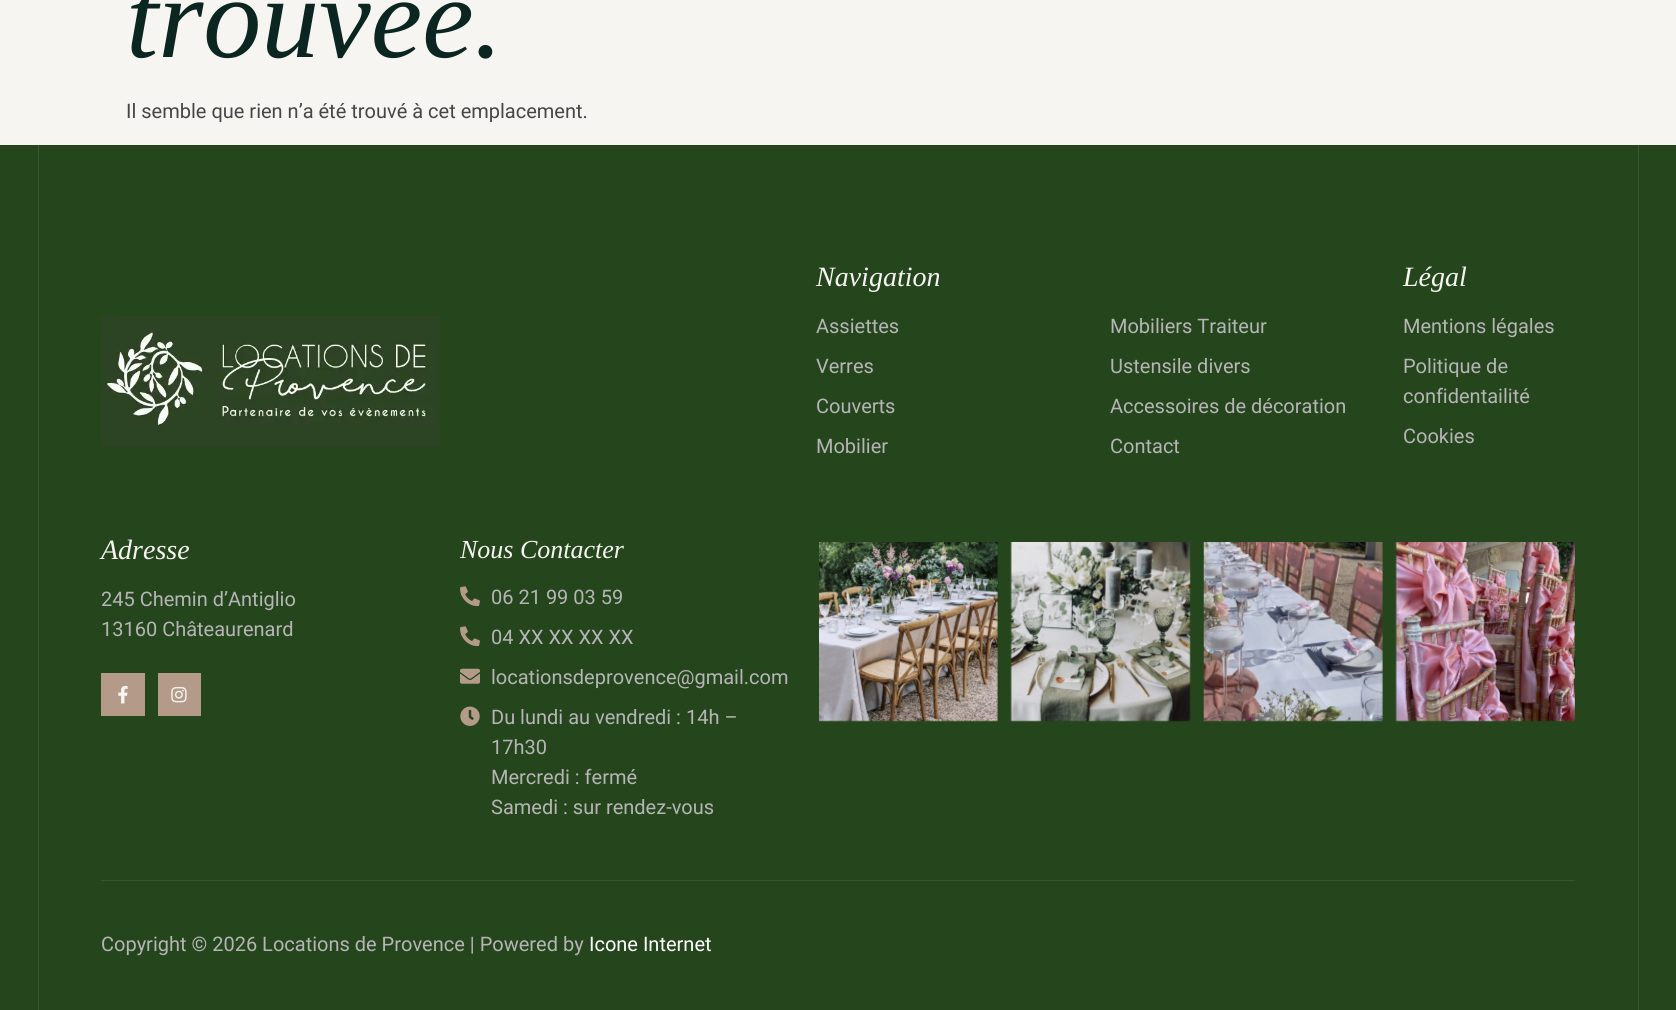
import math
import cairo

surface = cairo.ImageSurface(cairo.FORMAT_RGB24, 1676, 1010)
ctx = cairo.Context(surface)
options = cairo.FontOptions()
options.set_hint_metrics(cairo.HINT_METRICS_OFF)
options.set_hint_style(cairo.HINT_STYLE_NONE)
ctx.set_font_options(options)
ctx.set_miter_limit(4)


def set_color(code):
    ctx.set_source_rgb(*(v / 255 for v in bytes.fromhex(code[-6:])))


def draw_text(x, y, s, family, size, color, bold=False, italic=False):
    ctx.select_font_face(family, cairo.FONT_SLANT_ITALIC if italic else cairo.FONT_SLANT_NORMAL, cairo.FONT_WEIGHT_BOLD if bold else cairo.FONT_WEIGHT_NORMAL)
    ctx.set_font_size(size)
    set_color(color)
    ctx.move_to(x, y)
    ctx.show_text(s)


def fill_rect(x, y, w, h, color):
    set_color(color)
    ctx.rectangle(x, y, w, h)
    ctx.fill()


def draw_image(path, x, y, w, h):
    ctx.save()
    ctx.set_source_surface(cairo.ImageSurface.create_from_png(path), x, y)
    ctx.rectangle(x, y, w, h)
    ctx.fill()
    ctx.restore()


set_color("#f6f5f1")
ctx.paint()
draw_text(126, 57, "trouvée.", "Liberation Serif", 116, "#0b2520", italic=True)
draw_text(126, 118, "Il semble que rien n’a été trouvé à cet emplacement.", "Roboto", 20, "#464646")
fill_rect(0, 145, 1676, 865, "#25451d")
fill_rect(1638, 145, 1, 865, "#395631")
fill_rect(38, 145, 1, 865, "#395631")
draw_image("assets/img1.png", 101, 316, 339, 131)
draw_text(816, 286, "Navigation", "Liberation Serif", 28, "#f6f5f1", italic=True)
draw_text(816, 333, "Assiettes", "Roboto", 20, "#b5b5b5")
draw_text(816, 373, "Verres", "Roboto", 20, "#b5b5b5")
draw_text(816, 413, "Couverts", "Roboto", 20, "#b5b5b5")
draw_text(816, 453, "Mobilier", "Roboto", 20, "#b5b5b5")
draw_text(1110, 333, "Mobiliers Traiteur", "Roboto", 20, "#b5b5b5")
draw_text(1110, 373, "Ustensile divers", "Roboto", 20, "#b5b5b5")
draw_text(1110, 413, "Accessoires de décoration", "Roboto", 20, "#b5b5b5")
draw_text(1110, 453, "Contact", "Roboto", 20, "#b5b5b5")
draw_text(1403, 286, "Légal", "Liberation Serif", 28, "#f6f5f1", italic=True)
draw_text(1403, 333, "Mentions légales", "Roboto", 20, "#b5b5b5")
draw_text(1403, 373, "Politique de", "Roboto", 20, "#b5b5b5")
draw_text(1403, 403, "confidentailité", "Roboto", 20, "#b5b5b5")
draw_text(1403, 443, "Cookies", "Roboto", 20, "#b5b5b5")
draw_text(101, 559, "Adresse", "Liberation Serif", 28, "#f6f5f1", italic=True)
draw_text(101, 606, "245 Chemin d’Antiglio", "Roboto", 20, "#b5b5b5")
draw_text(101, 636, "13160 Châteaurenard", "Roboto", 20, "#b5b5b5")
fill_rect(101, 673, 44, 43, "#b49b89")
draw_image("assets/img2.png", 118, 685, 10, 19)
fill_rect(158, 673, 43, 43, "#b49b89")
draw_image("assets/img3.png", 171, 687, 16, 16)
draw_text(460, 558, "Nous Contacter", "Liberation Serif", 26, "#f6f5f1", italic=True)
draw_image("assets/img4.png", 460, 586, 20, 20)
draw_text(491, 604, "06 21 99 03 59", "Roboto", 20, "#b5b5b5")
draw_image("assets/img4.png", 460, 626, 20, 20)
draw_text(491, 644, "04 XX XX XX XX", "Roboto", 20, "#b5b5b5")
draw_image("assets/img5.png", 460, 668, 20, 16)
draw_text(491, 684, "locationsdeprovence@gmail.com", "Roboto", 20, "#b5b5b5")
draw_image("assets/img6.png", 460, 706, 20, 20)
draw_text(491, 724, "Du lundi au vendredi : 14h –", "Roboto", 20, "#b5b5b5")
draw_text(491, 754, "17h30", "Roboto", 20, "#b5b5b5")
draw_text(491, 784, "Mercredi : fermé", "Roboto", 20, "#b5b5b5")
draw_text(491, 814, "Samedi : sur rendez-vous", "Roboto", 20, "#b5b5b5")
draw_image("assets/img7.png", 819, 542, 179, 180)
draw_image("assets/img8.png", 1010, 542, 181, 180)
draw_image("assets/img9.png", 1203, 542, 180, 180)
draw_image("assets/img10.png", 1395, 542, 180, 180)
fill_rect(101, 880, 1474, 1, "#36542f")
draw_text(101, 951, "Copyright © 2026 Locations de Provence | Powered by", "Roboto", 20, "#b5b5b5")
draw_text(589, 951, "Icone Internet", "Roboto", 20, "#ffffff")
surface.write_to_png("output.png")
